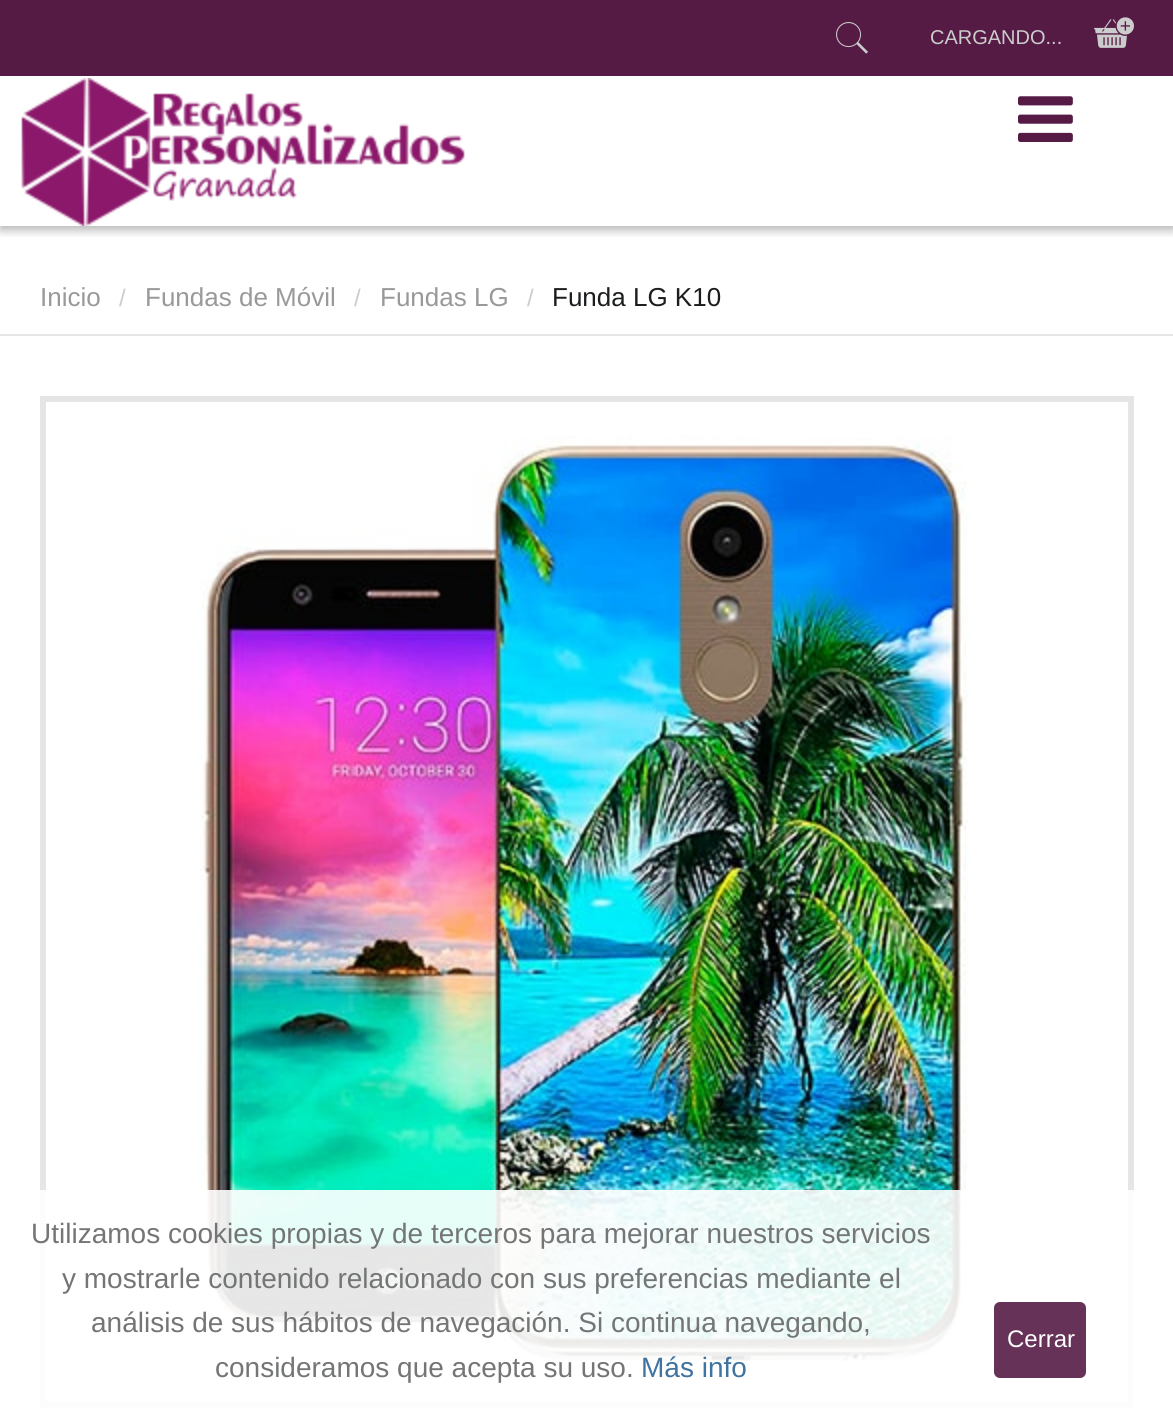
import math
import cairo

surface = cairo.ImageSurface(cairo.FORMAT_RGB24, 1173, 1410)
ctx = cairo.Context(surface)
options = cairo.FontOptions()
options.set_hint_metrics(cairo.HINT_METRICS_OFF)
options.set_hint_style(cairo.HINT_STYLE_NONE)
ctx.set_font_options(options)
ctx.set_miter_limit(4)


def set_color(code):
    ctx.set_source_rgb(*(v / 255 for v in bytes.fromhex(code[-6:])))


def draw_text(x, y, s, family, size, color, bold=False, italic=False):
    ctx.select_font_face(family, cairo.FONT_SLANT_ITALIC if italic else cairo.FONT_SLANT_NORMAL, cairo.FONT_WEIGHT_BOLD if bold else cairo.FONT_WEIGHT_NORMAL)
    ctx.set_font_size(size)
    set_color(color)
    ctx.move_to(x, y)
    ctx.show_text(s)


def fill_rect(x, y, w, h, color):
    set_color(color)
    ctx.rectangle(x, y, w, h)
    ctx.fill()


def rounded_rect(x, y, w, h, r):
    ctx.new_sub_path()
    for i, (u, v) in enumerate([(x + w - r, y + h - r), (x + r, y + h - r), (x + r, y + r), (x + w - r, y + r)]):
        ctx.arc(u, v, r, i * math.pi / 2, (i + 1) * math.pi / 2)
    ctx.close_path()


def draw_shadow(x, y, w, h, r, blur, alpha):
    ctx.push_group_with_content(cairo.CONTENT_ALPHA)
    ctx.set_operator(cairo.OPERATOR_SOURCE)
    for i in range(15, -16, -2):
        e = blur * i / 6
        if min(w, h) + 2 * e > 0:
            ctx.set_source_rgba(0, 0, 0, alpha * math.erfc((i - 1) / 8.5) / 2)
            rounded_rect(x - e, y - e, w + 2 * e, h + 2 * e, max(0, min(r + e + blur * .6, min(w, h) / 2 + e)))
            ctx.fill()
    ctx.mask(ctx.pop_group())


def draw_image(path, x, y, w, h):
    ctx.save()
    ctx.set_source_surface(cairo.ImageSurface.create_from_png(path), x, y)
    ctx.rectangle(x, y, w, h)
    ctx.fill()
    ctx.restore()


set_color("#ffffff")
ctx.paint()
ctx.save()
ctx.rectangle(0, 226, 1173, 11)
ctx.clip()
set_color("#000000")
draw_shadow(0, 80, 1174, 150, 0, 5, 0.3)
ctx.restore()
fill_rect(0, 0, 1173, 76, "#551b45")
draw_image("assets/img1.png", 836, 22, 32, 32)
draw_text(930, 44, "CARGANDO...", "Liberation Sans", 20, "#cccccc")
draw_image("assets/img2.png", 1094, 17, 40, 31)
draw_image("assets/img3.png", 21, 78, 444, 148)
draw_image("assets/img4.png", 1018, 96, 55, 46)
fill_rect(0, 334, 1173, 2, "#e5e5e5")
draw_text(40, 306, "Inicio", "Liberation Sans", 26, "#999999")
draw_text(119, 306, "/", "Liberation Sans", 24, "#cccccc")
draw_text(145, 306, "Fundas de Móvil", "Liberation Sans", 26, "#999999")
draw_text(354, 306, "/", "Liberation Sans", 24, "#cccccc")
draw_text(380, 306, "Fundas LG", "Liberation Sans", 26, "#999999")
draw_text(527, 306, "/", "Liberation Sans", 24, "#cccccc")
draw_text(552, 306, "Funda LG K10", "Liberation Sans", 26, "#1b1d1f")
ctx.rectangle(43, 399, 1088, 1006)
set_color("#e5e5e5")
ctx.set_line_width(6)
ctx.stroke()
draw_image("assets/img5.png", 200, 435, 768, 928)
ctx.set_source_rgba(1, 1, 1, 0.9)
ctx.rectangle(40, 1190, 1094, 218)
ctx.fill()
draw_text(31, 1243, "Utilizamos cookies propias y de terceros para mejorar nuestros servicios", "Liberation Sans", 28, "#747575")
draw_text(62, 1288, "y mostrarle contenido relacionado con sus preferencias mediante el", "Liberation Sans", 28, "#747575")
draw_text(91, 1332, "análisis de sus hábitos de navegación. Si continua navegando,", "Liberation Sans", 28, "#747575")
draw_text(215, 1377, "consideramos que acepta su uso.", "Liberation Sans", 28, "#747575")
draw_text(641, 1377, "Más info", "Liberation Sans", 28, "#3f73a0")
set_color("#663258")
rounded_rect(994, 1302, 92, 76, 6)
ctx.fill()
draw_text(1007, 1347, "Cerrar", "Liberation Sans", 24, "#ffffff")
surface.write_to_png("output.png")
